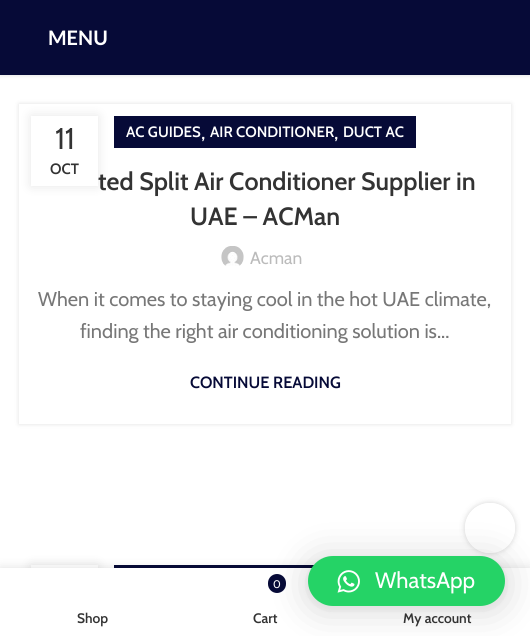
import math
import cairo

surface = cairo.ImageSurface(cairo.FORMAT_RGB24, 530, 636)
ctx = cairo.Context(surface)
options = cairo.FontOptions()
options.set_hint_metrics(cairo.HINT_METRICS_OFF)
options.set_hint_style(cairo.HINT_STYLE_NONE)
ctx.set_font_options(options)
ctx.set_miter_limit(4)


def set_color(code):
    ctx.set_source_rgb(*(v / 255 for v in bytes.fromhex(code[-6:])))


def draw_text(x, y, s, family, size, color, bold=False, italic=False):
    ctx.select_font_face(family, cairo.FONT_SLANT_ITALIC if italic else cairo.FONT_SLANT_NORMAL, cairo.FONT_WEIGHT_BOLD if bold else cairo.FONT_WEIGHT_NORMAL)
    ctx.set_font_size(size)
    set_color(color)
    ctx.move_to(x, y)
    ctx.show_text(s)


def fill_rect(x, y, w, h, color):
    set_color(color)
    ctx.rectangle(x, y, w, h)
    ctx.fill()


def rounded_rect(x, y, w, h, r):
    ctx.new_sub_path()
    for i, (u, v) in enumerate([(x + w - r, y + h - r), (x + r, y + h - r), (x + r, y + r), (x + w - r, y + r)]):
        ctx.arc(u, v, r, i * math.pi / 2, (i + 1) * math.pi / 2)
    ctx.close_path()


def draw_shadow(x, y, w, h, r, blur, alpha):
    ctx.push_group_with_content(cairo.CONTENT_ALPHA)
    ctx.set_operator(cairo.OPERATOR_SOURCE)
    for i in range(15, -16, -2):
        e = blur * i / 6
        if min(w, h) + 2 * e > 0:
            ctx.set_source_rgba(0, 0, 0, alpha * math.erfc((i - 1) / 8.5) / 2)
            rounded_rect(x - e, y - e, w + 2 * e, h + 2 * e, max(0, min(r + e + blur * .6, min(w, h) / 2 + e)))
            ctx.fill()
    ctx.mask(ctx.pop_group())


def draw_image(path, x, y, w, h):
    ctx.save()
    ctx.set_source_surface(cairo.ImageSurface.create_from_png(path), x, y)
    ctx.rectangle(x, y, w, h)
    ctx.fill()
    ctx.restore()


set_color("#ffffff")
ctx.paint()
set_color("#000000")
draw_shadow(0, 1, 530, 75, 0, 2, 0.1)
fill_rect(0, 0, 530, 75, "#060a37")
draw_text(48, 45, "MENU", "Lato", 20, "#ffffff", bold=True)
ctx.save()
ctx.set_fill_rule(cairo.FILL_RULE_EVEN_ODD)
ctx.new_path()
ctx.move_to(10, 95)
ctx.line_to(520, 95)
ctx.line_to(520, 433)
ctx.line_to(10, 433)
ctx.close_path()
ctx.move_to(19, 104)
ctx.line_to(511, 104)
ctx.line_to(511, 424)
ctx.line_to(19, 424)
ctx.close_path()
ctx.clip()
set_color("#000000")
draw_shadow(19, 104, 492, 320, 0, 2.5, 0.12)
ctx.restore()
fill_rect(19, 423, 492, 1, "#ffffff")
fill_rect(114, 116, 302, 32, "#060a37")
draw_text(126, 137, "AC GUIDES", "Cabin SemiBold", 15, "#ffffff")
draw_text(210, 137, "AIR CONDITIONER", "Cabin SemiBold", 15, "#ffffff")
draw_text(343, 137, "DUCT AC", "Cabin SemiBold", 15, "#ffffff")
draw_text(201, 139, ",", "Cabin", 20, "#ffffff")
draw_text(334, 139, ",", "Cabin", 20, "#ffffff")
draw_text(98, 190, "ted Split Air Conditioner Supplier in", "Cabin SemiBold", 25, "#333333")
draw_text(190, 225, "UAE – ACMan", "Cabin SemiBold", 25, "#333333")
draw_image("assets/img1.png", 221, 246, 23, 20)
draw_text(250, 264, "Acman", "Cabin", 17.5, "#bbbbbb")
draw_text(38, 306, "When it comes to staying cool in the hot UAE climate,", "Cabin", 20, "#777777")
draw_text(80, 338, "finding the right air conditioning solution is...", "Cabin", 20, "#777777")
draw_text(190, 388, "CONTINUE READING", "Cabin SemiBold", 16.25, "#060a37")
set_color("#000000")
draw_shadow(31, 116, 67, 70, 0, 5.5, 0.1)
fill_rect(31, 116, 67, 70, "#ffffff")
draw_text(55, 149, "11", "Cabin", 30, "#333333")
draw_text(50, 174, "OCT", "Cabin SemiBold", 15, "#333333")
fill_rect(114, 565, 200, 3, "#060a37")
set_color("#000000")
draw_shadow(31, 565, 67, 70, 0, 5.5, 0.1)
fill_rect(31, 565, 67, 3, "#ffffff")
ctx.save()
ctx.set_fill_rule(cairo.FILL_RULE_EVEN_ODD)
ctx.new_path()
ctx.move_to(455, 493)
ctx.line_to(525, 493)
ctx.line_to(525, 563)
ctx.line_to(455, 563)
ctx.close_path()
ctx.move_to(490, 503)
ctx.curve_to(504, 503, 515, 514, 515, 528)
ctx.curve_to(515, 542, 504, 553, 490, 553)
ctx.curve_to(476, 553, 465, 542, 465, 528)
ctx.curve_to(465, 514, 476, 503, 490, 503)
ctx.close_path()
ctx.clip()
set_color("#000000")
draw_shadow(465, 503, 50, 50, 25, 3, 0.17)
ctx.restore()
ctx.set_source_rgba(1, 1, 1, 0.9)
ctx.arc(490, 528, 25, 0, 2 * math.pi)
ctx.fill()
set_color("#000000")
draw_shadow(0, 568, 530, 68, 0, 5.5, 0.12)
fill_rect(0, 568, 530, 68, "#ffffff")
set_color("#060a37")
rounded_rect(268, 574, 18, 19, 9)
ctx.fill()
set_color("#000000")
draw_shadow(308, 559, 197, 50, 25, 20, 0.16)
draw_shadow(308, 558, 197, 50, 25, 4, 0.06)
set_color("#25d366")
rounded_rect(308, 556, 197, 50, 25)
ctx.fill()
draw_image("assets/img2.png", 337, 570, 23, 23)
draw_text(375, 588, "WhatsApp", "Cabin", 22.5, "#ffffff")
draw_text(77, 623, "Shop", "Cabin SemiBold", 13.75, "#333333")
draw_text(273, 588, "0", "Cabin", 11, "#ffffff")
draw_text(253, 623, "Cart", "Cabin SemiBold", 13.75, "#333333")
draw_text(403, 623, "My account", "Cabin SemiBold", 13.75, "#333333")
surface.write_to_png("output.png")
